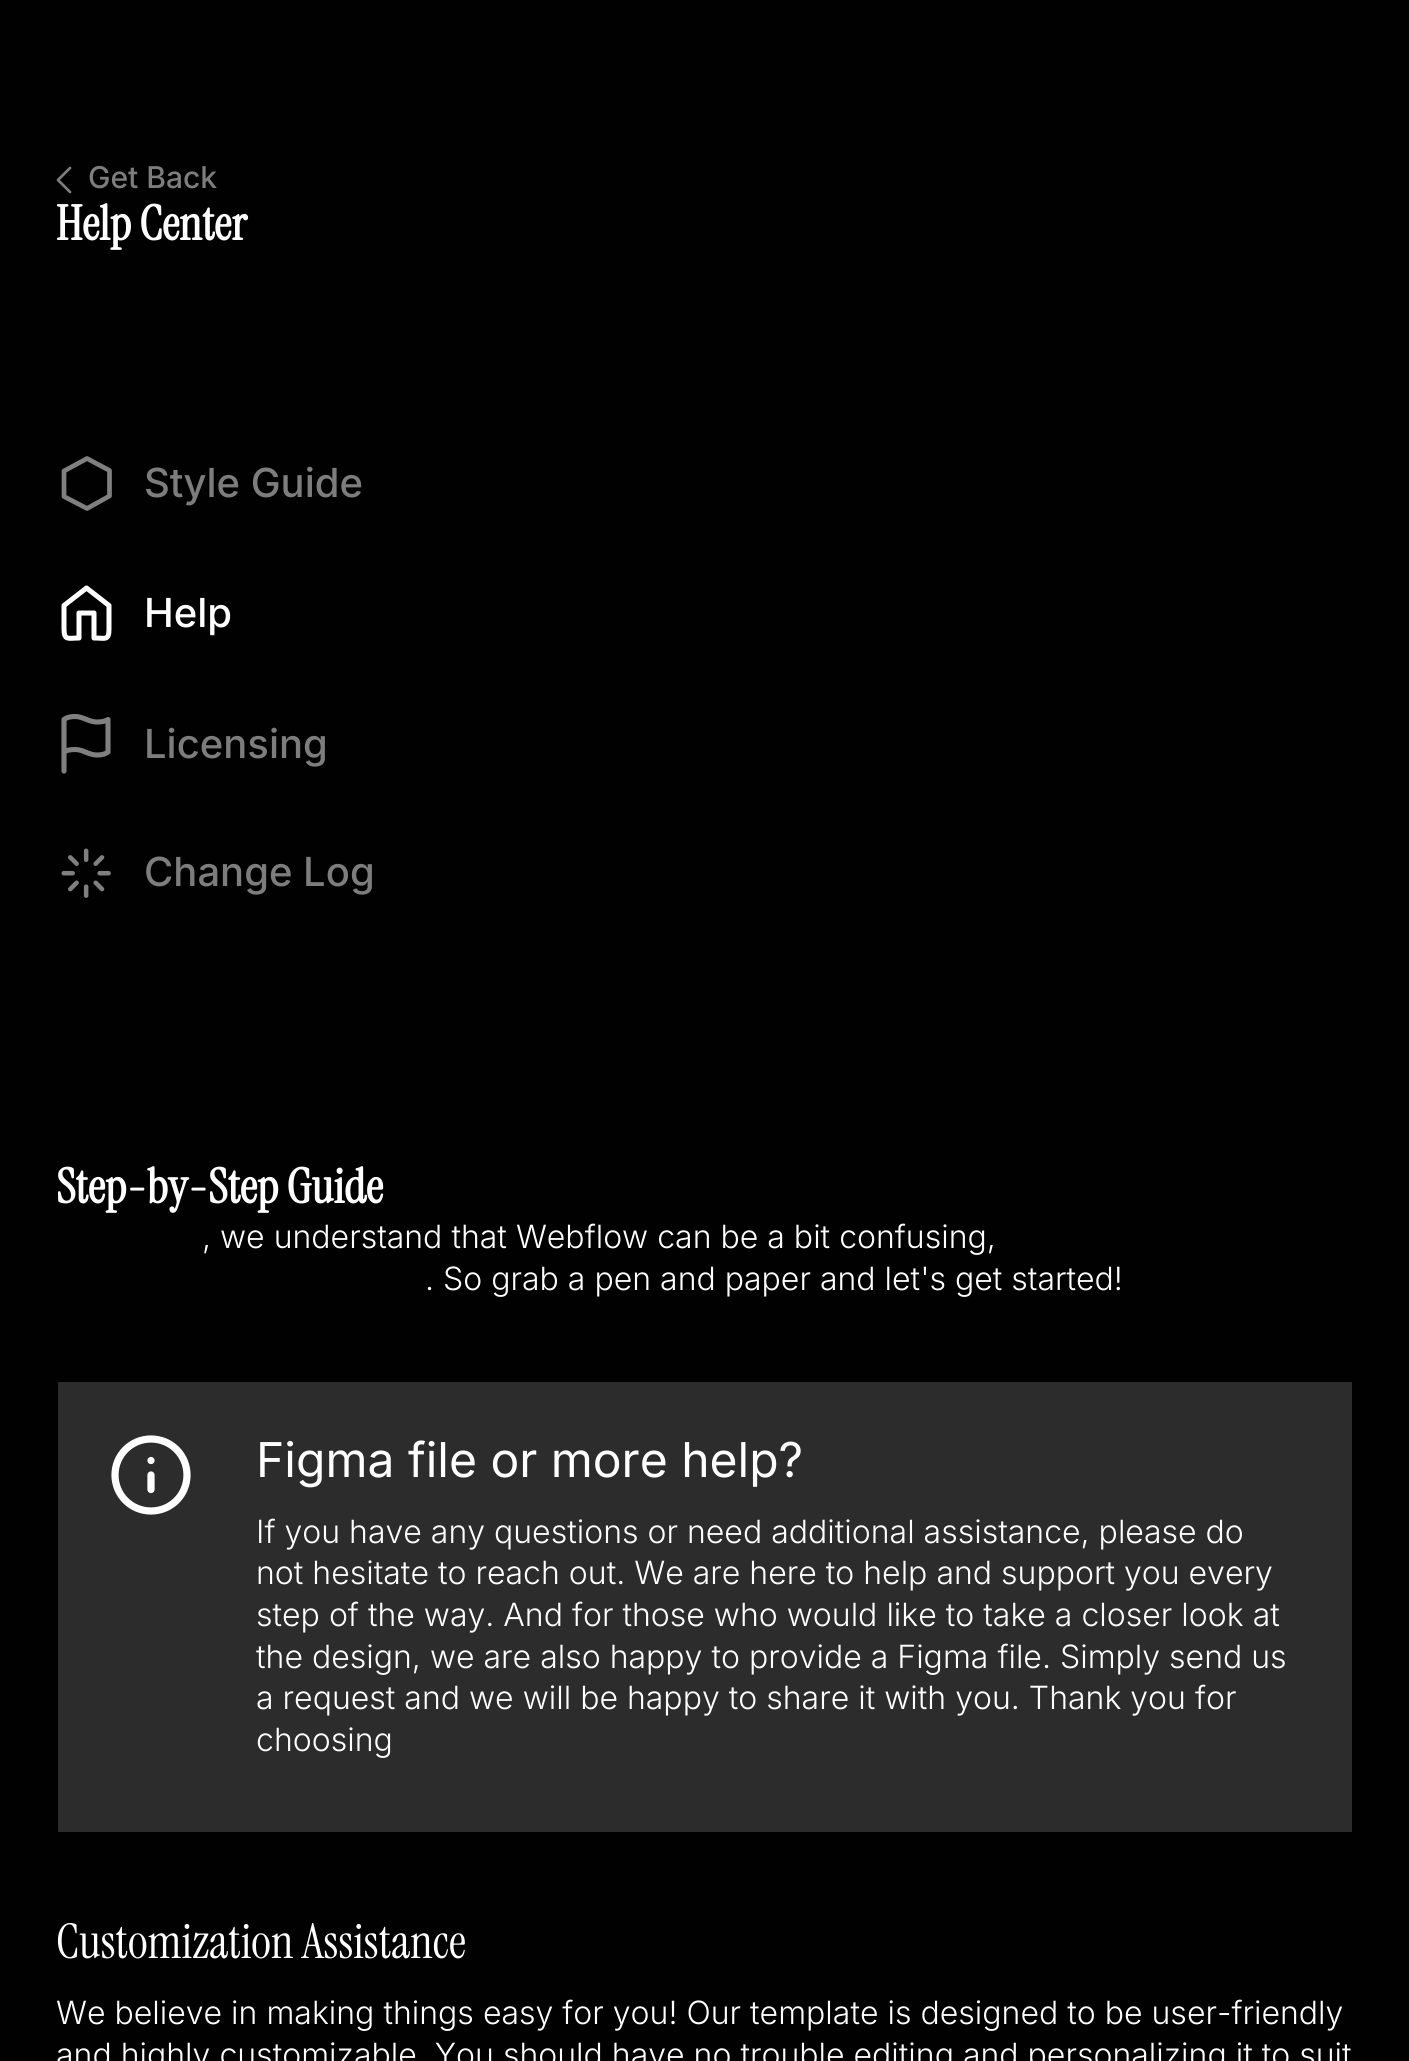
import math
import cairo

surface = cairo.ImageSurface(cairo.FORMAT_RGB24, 1409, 2061)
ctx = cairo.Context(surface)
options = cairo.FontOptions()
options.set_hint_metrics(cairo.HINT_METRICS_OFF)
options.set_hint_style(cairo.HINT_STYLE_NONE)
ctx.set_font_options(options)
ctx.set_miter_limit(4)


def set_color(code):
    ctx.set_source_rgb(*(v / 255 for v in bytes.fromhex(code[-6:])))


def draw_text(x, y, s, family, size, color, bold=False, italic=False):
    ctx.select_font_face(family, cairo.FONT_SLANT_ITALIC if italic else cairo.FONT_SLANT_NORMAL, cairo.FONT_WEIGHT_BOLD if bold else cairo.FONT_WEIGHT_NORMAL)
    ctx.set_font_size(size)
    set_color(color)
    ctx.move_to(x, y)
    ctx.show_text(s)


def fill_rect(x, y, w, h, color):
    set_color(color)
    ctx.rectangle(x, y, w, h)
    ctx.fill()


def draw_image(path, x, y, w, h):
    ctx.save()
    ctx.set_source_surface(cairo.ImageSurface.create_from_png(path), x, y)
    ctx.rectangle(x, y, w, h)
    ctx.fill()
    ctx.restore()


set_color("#010101")
ctx.paint()
ctx.new_path()
ctx.move_to(70, 192)
ctx.line_to(58, 180)
ctx.line_to(70, 168)
set_color("#7d7d7d")
ctx.set_line_width(2.7)
ctx.set_line_cap(cairo.LINE_CAP_ROUND)
ctx.set_line_join(cairo.LINE_JOIN_ROUND)
ctx.stroke()
draw_text(88, 188, "Get Back", "Inter Medium", 30, "#7d7d7d")
draw_text(56, 240, "Help Center", "Instrument Serif", 48, "#ffffff", bold=True)
ctx.new_path()
ctx.move_to(87, 458.5)
ctx.line_to(109.5, 470.5)
ctx.line_to(109.5, 496)
ctx.line_to(87, 508.5)
ctx.line_to(64, 496.5)
ctx.line_to(64, 471)
ctx.close_path()
set_color("#808080")
ctx.set_line_width(4.7)
ctx.stroke()
draw_text(144, 497, "Style Guide", "Inter Medium", 40, "#7d7d7d")
ctx.new_path()
ctx.move_to(94.5, 638)
ctx.curve_to(105.5, 638, 109, 641, 109, 628.5)
ctx.line_to(109, 605.5)
ctx.line_to(86.5, 588)
ctx.line_to(64, 605.5)
ctx.line_to(64, 628.5)
ctx.curve_to(64, 641, 68, 638, 79, 638)
ctx.move_to(79, 638)
ctx.line_to(79, 613)
ctx.line_to(94, 613)
ctx.line_to(94, 638)
set_color("#ffffff")
ctx.set_line_width(5)
ctx.stroke()
draw_text(144, 627, "Help", "Inter Medium", 40, "#ffffff")
ctx.new_path()
ctx.move_to(64, 752)
ctx.curve_to(64, 752, 67, 749.5, 75, 749.5)
ctx.curve_to(83.5, 749.5, 88.5, 755, 97, 755)
ctx.curve_to(105, 755, 108, 752, 108, 752)
ctx.line_to(108, 719.5)
ctx.curve_to(108, 719.5, 105, 722, 97, 722)
ctx.curve_to(88.5, 722, 83.5, 716.5, 75, 716.5)
ctx.curve_to(67, 716.5, 64, 719.5, 64, 719.5)
ctx.close_path()
ctx.move_to(64, 771)
ctx.line_to(64, 752)
set_color("#808080")
ctx.set_line_width(5.1)
ctx.stroke()
draw_text(144, 758, "Licensing", "Inter Medium", 40, "#7d7d7d")
draw_image("assets/img1.png", 61, 848, 50, 50)
draw_text(144, 886, "Change Log", "Inter Medium", 40, "#7d7d7d")
draw_text(56, 1203, "Step-by-Step Guide", "Instrument Serif", 48, "#ffffff", bold=True)
draw_text(202, 1248, ", we understand that Webflow can be a bit confusing,", "Inter Light", 32, "#ffffff")
draw_text(425, 1290, ". So grab a pen and paper and let's get started!", "Inter Light", 32, "#ffffff")
fill_rect(58, 1382, 1294, 450, "#2c2c2c")
ctx.new_path()
ctx.move_to(151, 1511)
ctx.curve_to(171, 1511, 187, 1495, 187, 1475)
ctx.curve_to(187, 1455, 171, 1439, 151, 1439)
ctx.curve_to(131, 1439, 115, 1455, 115, 1475)
ctx.curve_to(115, 1495, 131, 1511, 151, 1511)
ctx.close_path()
set_color("#ffffff")
ctx.set_line_width(7.2)
ctx.stroke()
ctx.new_path()
ctx.move_to(151, 1489.5)
ctx.line_to(151, 1475)
ctx.move_to(151, 1460.5)
ctx.line_to(151, 1460.5)
ctx.stroke()
draw_text(256, 1477, "Figma file or more help?", "Inter", 48, "#ffffff")
draw_text(256, 1543, "If you have any questions or need additional assistance, please do", "Inter Light", 32, "#ffffff")
draw_text(256, 1584, "not hesitate to reach out. We are here to help and support you every", "Inter Light", 32, "#ffffff")
draw_text(256, 1626, "step of the way. And for those who would like to take a closer look at", "Inter Light", 32, "#ffffff")
draw_text(256, 1668, "the design, we are also happy to provide a Figma file. Simply send us", "Inter Light", 32, "#ffffff")
draw_text(256, 1709, "a request and we will be happy to share it with you. Thank you for", "Inter Light", 32, "#ffffff")
draw_text(256, 1751, "choosing", "Inter Light", 32, "#ffffff")
draw_text(56, 1958, "Customization Assistance", "Instrument Serif", 48, "#ffffff")
draw_text(56, 2024, "We believe in making things easy for you! Our template is designed to be user-friendly", "Inter Light", 32, "#ffffff")
draw_text(56, 2066, "and highly customizable. You should have no trouble editing and personalizing it to suit", "Inter Light", 32, "#ffffff")
surface.write_to_png("output.png")
